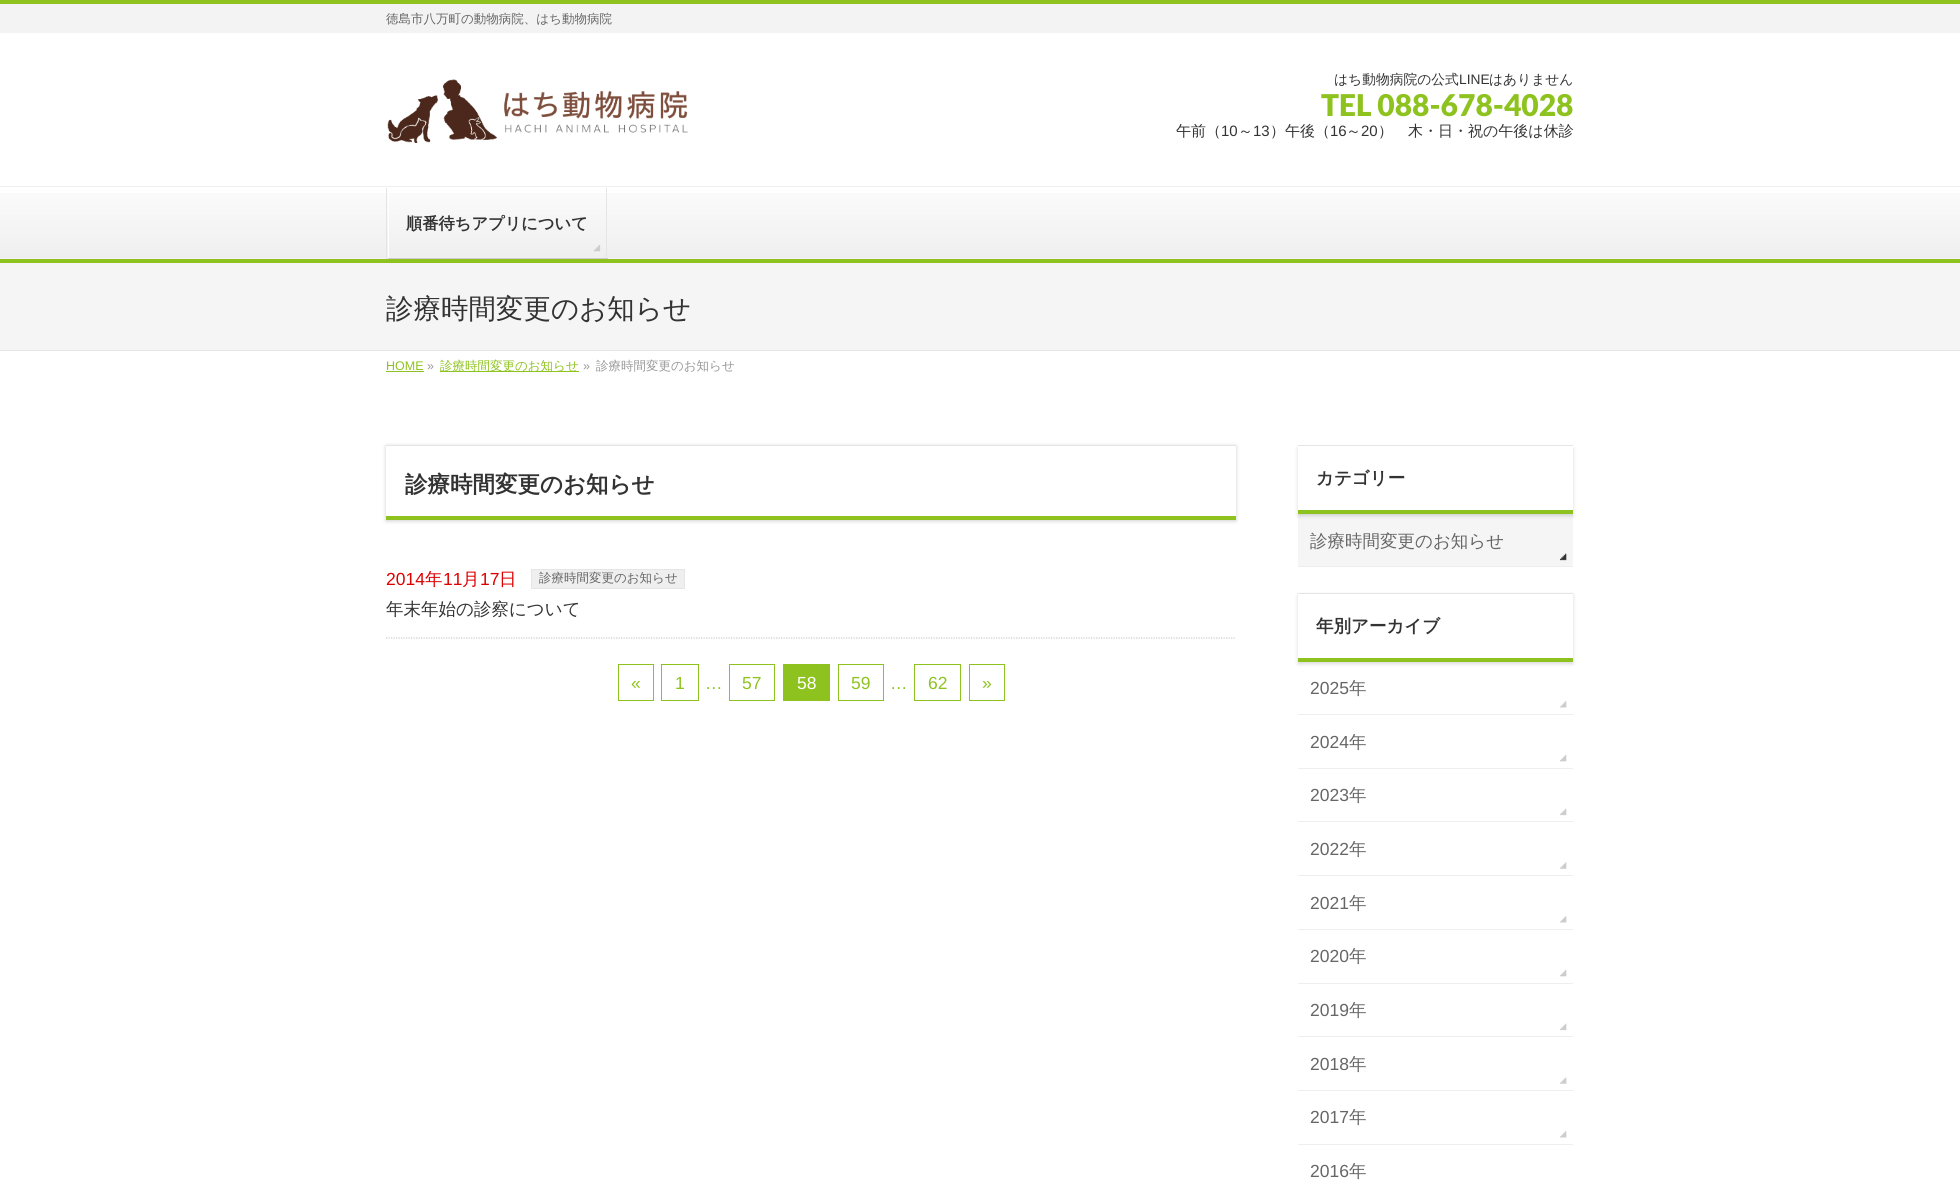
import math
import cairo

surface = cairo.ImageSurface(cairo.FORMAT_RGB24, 1960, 1181)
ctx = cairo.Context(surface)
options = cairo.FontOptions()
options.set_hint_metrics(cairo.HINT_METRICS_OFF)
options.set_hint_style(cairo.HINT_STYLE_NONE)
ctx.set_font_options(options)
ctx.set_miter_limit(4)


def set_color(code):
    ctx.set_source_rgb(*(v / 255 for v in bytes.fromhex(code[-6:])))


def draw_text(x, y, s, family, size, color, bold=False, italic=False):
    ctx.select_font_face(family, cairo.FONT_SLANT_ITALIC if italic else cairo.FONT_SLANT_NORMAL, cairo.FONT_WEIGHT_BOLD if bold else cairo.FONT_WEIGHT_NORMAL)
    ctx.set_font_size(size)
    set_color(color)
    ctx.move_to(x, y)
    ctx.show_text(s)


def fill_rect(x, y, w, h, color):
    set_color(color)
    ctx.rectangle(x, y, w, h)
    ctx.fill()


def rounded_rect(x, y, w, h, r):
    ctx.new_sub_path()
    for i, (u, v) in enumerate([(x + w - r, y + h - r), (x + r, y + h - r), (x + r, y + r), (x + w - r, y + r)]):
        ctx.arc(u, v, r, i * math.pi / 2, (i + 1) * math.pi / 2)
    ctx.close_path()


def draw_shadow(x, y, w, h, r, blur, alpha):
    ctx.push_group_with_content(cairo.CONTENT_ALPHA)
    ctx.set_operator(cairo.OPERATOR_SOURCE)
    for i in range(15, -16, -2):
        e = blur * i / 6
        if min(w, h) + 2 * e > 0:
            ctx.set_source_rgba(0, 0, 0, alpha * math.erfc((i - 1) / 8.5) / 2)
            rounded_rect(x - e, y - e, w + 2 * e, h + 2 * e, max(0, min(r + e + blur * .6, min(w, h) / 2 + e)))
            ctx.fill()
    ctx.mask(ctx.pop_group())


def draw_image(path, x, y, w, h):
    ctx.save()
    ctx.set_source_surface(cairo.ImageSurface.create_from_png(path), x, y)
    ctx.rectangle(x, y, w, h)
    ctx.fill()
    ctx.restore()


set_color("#ffffff")
ctx.paint()
fill_rect(0, 4, 1960, 29, "#f3f3f3")
fill_rect(0, 0, 1960, 4, "#8ec31f")
draw_text(386, 23, "徳島市八万町の動物病院、はち動物病院", "WenQuanYi Zen Hei Medium", 12.5, "#666666")
draw_image("assets/img1.png", 387, 79, 301, 64)
draw_text(1334, 84, "はち動物病院の公式", "WenQuanYi Zen Hei Medium", 13.75, "#333333")
draw_text(1459, 84, "LINE", "Liberation Sans", 13.75, "#333333")
draw_text(1489, 84, "はありません", "WenQuanYi Zen Hei Medium", 13.75, "#333333")
draw_text(1321, 116, "TEL 088-678-4028", "Lato Black", 30, "#8ec31f")
draw_text(1176, 136, "午前（", "WenQuanYi Zen Hei Medium", 15, "#333333")
draw_text(1221, 136, "10", "Liberation Sans", 15, "#333333")
draw_text(1238, 136, "～", "WenQuanYi Zen Hei Medium", 15, "#333333")
draw_text(1253, 136, "13", "Liberation Sans", 15, "#333333")
draw_text(1270, 136, "）午後（", "WenQuanYi Zen Hei Medium", 15, "#333333")
draw_text(1330, 136, "16", "Liberation Sans", 15, "#333333")
draw_text(1346, 136, "～", "WenQuanYi Zen Hei Medium", 15, "#333333")
draw_text(1361, 136, "20", "Liberation Sans", 15, "#333333")
draw_text(1378, 136, "）　木・日・祝の午後は休診", "WenQuanYi Zen Hei Medium", 15, "#333333")
draw_image("assets/img2.png", 0, 193, 1960, 66)
fill_rect(0, 186, 1960, 1, "#eeeeee")
fill_rect(0, 259, 1960, 4, "#8ec31f")
fill_rect(386, 188, 1, 71, "#e5e5e5")
fill_rect(388, 188, 1, 71, "#ffffff")
draw_image("assets/img3.png", 593, 245, 8, 7)
fill_rect(606, 188, 1, 71, "#e5e5e5")
fill_rect(388, 258, 220, 1, "#cccccc")
draw_text(406, 229, "順番待ちアプリについて", "WenQuanYi Zen Hei", 16.25, "#333333", bold=True)
fill_rect(0, 263, 1960, 87, "#f5f5f5")
fill_rect(0, 350, 1960, 1, "#e5e5e5")
draw_text(386, 318, "診療時間変更のお知らせ", "WenQuanYi Zen Hei Medium", 27.5, "#333333")
draw_text(386, 370, "HOME", "Liberation Sans", 12.5, "#8ec31f")
fill_rect(386, 371, 38, 1, "#8ec31f")
draw_text(427, 370, "»", "Liberation Sans", 12.5, "#999999")
fill_rect(440, 371, 139, 1, "#8ec31f")
draw_text(440, 370, "診療時間変更のお知らせ", "WenQuanYi Zen Hei Medium", 12.5, "#8ec31f")
draw_text(583, 370, "»", "Liberation Sans", 12.5, "#999999")
draw_text(596, 370, "診療時間変更のお知らせ", "WenQuanYi Zen Hei Medium", 12.5, "#999999")
ctx.save()
ctx.set_fill_rule(cairo.FILL_RULE_EVEN_ODD)
ctx.new_path()
ctx.move_to(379, 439)
ctx.line_to(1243, 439)
ctx.line_to(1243, 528)
ctx.line_to(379, 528)
ctx.close_path()
ctx.move_to(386, 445)
ctx.line_to(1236, 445)
ctx.line_to(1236, 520)
ctx.line_to(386, 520)
ctx.close_path()
ctx.clip()
set_color("#000000")
draw_shadow(386, 446, 850, 75, 0, 2, 0.2)
ctx.restore()
fill_rect(386, 445, 850, 1, "#e5e5e5")
fill_rect(386, 516, 850, 4, "#8ec31f")
draw_text(405, 492, "診療時間変更のお知らせ", "WenQuanYi Zen Hei", 22.5, "#333333", bold=True)
ctx.new_path()
ctx.move_to(386, 638)
ctx.line_to(1236, 638)
set_color("#cccccc")
ctx.set_line_width(1.2)
ctx.set_dash([1.25, 1.25])
ctx.stroke()
draw_text(386, 585, "2014", "Liberation Sans", 17.5, "#dd0000")
draw_text(425, 585, "年", "WenQuanYi Zen Hei Medium", 17.5, "#dd0000")
draw_text(443, 585, "11", "Liberation Sans", 17.5, "#dd0000")
draw_text(462, 585, "月", "WenQuanYi Zen Hei Medium", 17.5, "#dd0000")
draw_text(480, 585, "17", "Liberation Sans", 17.5, "#dd0000")
draw_text(499, 585, "日", "WenQuanYi Zen Hei Medium", 17.5, "#dd0000")
set_color("#efefef")
ctx.rectangle(531.5, 569.5, 153, 19)
ctx.fill_preserve()
set_color("#e5e5e5")
ctx.set_line_width(1)
ctx.set_dash([])
ctx.stroke()
draw_text(539, 582, "診療時間変更のお知らせ", "WenQuanYi Zen Hei Medium", 12.5, "#666666")
draw_text(386, 615, "年末年始の診察について", "WenQuanYi Zen Hei Medium", 17.5, "#333333")
ctx.rectangle(618.5, 664.5, 35, 36)
set_color("#8ec31f")
ctx.stroke()
draw_text(631, 689, "«", "Liberation Sans", 17.5, "#8ec31f")
ctx.rectangle(661.5, 664.5, 37, 36)
ctx.stroke()
draw_text(675, 689, "1", "Liberation Sans", 17.5, "#8ec31f")
draw_text(705, 689, "…", "Liberation Sans", 17.5, "#8ec31f")
ctx.rectangle(729.5, 664.5, 45, 36)
ctx.stroke()
draw_text(742, 689, "57", "Liberation Sans", 17.5, "#8ec31f")
fill_rect(783, 664, 47, 37, "#8ec31f")
draw_text(797, 689, "58", "Liberation Sans", 17.5, "#ffffff")
ctx.rectangle(838.5, 664.5, 45, 36)
set_color("#8ec31f")
ctx.stroke()
draw_text(851, 689, "59", "Liberation Sans", 17.5, "#8ec31f")
draw_text(890, 689, "…", "Liberation Sans", 17.5, "#8ec31f")
ctx.rectangle(914.5, 664.5, 46, 36)
ctx.stroke()
draw_text(928, 689, "62", "Liberation Sans", 17.5, "#8ec31f")
ctx.rectangle(969.5, 664.5, 35, 36)
ctx.stroke()
draw_text(982, 689, "»", "Liberation Sans", 17.5, "#8ec31f")
fill_rect(1298, 514, 275, 52, "#f5f5f5")
ctx.save()
ctx.set_fill_rule(cairo.FILL_RULE_EVEN_ODD)
ctx.new_path()
ctx.move_to(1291, 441)
ctx.line_to(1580, 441)
ctx.line_to(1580, 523)
ctx.line_to(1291, 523)
ctx.close_path()
ctx.move_to(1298, 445)
ctx.line_to(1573, 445)
ctx.line_to(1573, 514)
ctx.line_to(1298, 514)
ctx.close_path()
ctx.clip()
set_color("#000000")
draw_shadow(1298, 448, 275, 68, 0, 2, 0.15)
ctx.restore()
fill_rect(1298, 445, 275, 1, "#e5e5e5")
fill_rect(1298, 510, 275, 4, "#8ec31f")
draw_text(1316, 484, "カテゴリー", "WenQuanYi Zen Hei", 17.5, "#333333", bold=True)
fill_rect(1298, 566, 275, 1, "#eeeeee")
draw_image("assets/img4.png", 1560, 553, 7, 8)
draw_text(1310, 547, "診療時間変更のお知らせ", "WenQuanYi Zen Hei Medium", 17.5, "#666666")
ctx.save()
ctx.set_fill_rule(cairo.FILL_RULE_EVEN_ODD)
ctx.new_path()
ctx.move_to(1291, 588)
ctx.line_to(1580, 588)
ctx.line_to(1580, 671)
ctx.line_to(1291, 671)
ctx.close_path()
ctx.move_to(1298, 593)
ctx.line_to(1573, 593)
ctx.line_to(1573, 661)
ctx.line_to(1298, 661)
ctx.close_path()
ctx.clip()
set_color("#000000")
draw_shadow(1298, 595, 275, 69, 0, 2, 0.15)
ctx.restore()
fill_rect(1298, 593, 275, 1, "#e5e5e5")
fill_rect(1298, 658, 275, 4, "#8ec31f")
draw_text(1316, 632, "年別アーカイブ", "WenQuanYi Zen Hei", 17.5, "#333333", bold=True)
fill_rect(1298, 714, 275, 1, "#eeeeee")
draw_image("assets/img5.png", 1560, 701, 7, 7)
draw_text(1310, 694, "2025", "Liberation Sans", 17.5, "#666666")
draw_text(1349, 694, "年", "WenQuanYi Zen Hei Medium", 17.5, "#666666")
fill_rect(1298, 768, 275, 1, "#eeeeee")
draw_image("assets/img6.png", 1560, 755, 7, 7)
draw_text(1310, 748, "2024", "Liberation Sans", 17.5, "#666666")
draw_text(1349, 748, "年", "WenQuanYi Zen Hei Medium", 17.5, "#666666")
fill_rect(1298, 821, 275, 1, "#eeeeee")
draw_image("assets/img7.png", 1560, 808, 7, 8)
draw_text(1310, 801, "2023", "Liberation Sans", 17.5, "#666666")
draw_text(1349, 801, "年", "WenQuanYi Zen Hei Medium", 17.5, "#666666")
fill_rect(1298, 875, 275, 1, "#eeeeee")
draw_image("assets/img8.png", 1560, 862, 7, 7)
draw_text(1310, 855, "2022", "Liberation Sans", 17.5, "#666666")
draw_text(1349, 855, "年", "WenQuanYi Zen Hei Medium", 17.5, "#666666")
fill_rect(1298, 929, 275, 1, "#eeeeee")
draw_image("assets/img5.png", 1560, 916, 7, 7)
draw_text(1310, 909, "2021", "Liberation Sans", 17.5, "#666666")
draw_text(1349, 909, "年", "WenQuanYi Zen Hei Medium", 17.5, "#666666")
fill_rect(1298, 983, 275, 1, "#eeeeee")
draw_image("assets/img6.png", 1560, 970, 7, 7)
draw_text(1310, 962, "2020", "Liberation Sans", 17.5, "#666666")
draw_text(1349, 962, "年", "WenQuanYi Zen Hei Medium", 17.5, "#666666")
fill_rect(1298, 1036, 275, 1, "#eeeeee")
draw_image("assets/img9.png", 1560, 1023, 7, 8)
draw_text(1310, 1016, "2019", "Liberation Sans", 17.5, "#666666")
draw_text(1349, 1016, "年", "WenQuanYi Zen Hei Medium", 17.5, "#666666")
fill_rect(1298, 1090, 275, 1, "#eeeeee")
draw_image("assets/img8.png", 1560, 1077, 7, 7)
draw_text(1310, 1070, "2018", "Liberation Sans", 17.5, "#666666")
draw_text(1349, 1070, "年", "WenQuanYi Zen Hei Medium", 17.5, "#666666")
fill_rect(1298, 1144, 275, 1, "#eeeeee")
draw_image("assets/img5.png", 1560, 1131, 7, 7)
draw_text(1310, 1123, "2017", "Liberation Sans", 17.5, "#666666")
draw_text(1349, 1123, "年", "WenQuanYi Zen Hei Medium", 17.5, "#666666")
draw_text(1310, 1177, "2016", "Liberation Sans", 17.5, "#666666")
draw_text(1349, 1177, "年", "WenQuanYi Zen Hei Medium", 17.5, "#666666")
surface.write_to_png("output.png")
